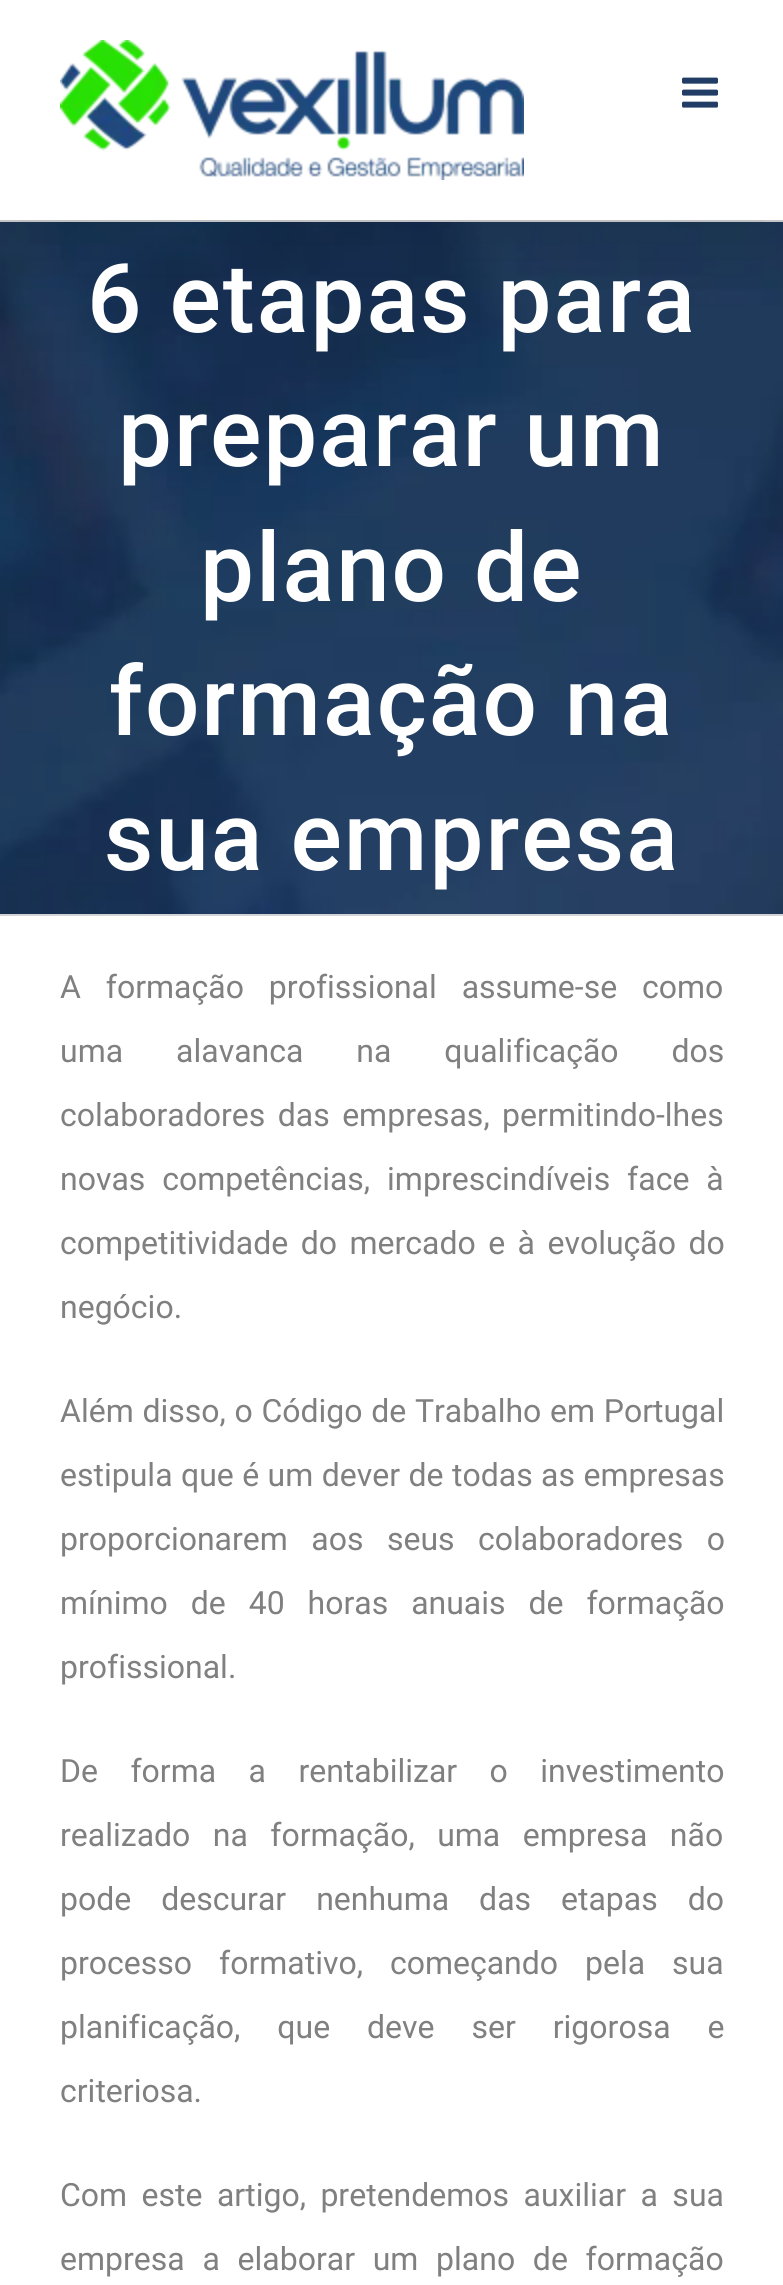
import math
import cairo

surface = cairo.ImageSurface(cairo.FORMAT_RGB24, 783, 2285)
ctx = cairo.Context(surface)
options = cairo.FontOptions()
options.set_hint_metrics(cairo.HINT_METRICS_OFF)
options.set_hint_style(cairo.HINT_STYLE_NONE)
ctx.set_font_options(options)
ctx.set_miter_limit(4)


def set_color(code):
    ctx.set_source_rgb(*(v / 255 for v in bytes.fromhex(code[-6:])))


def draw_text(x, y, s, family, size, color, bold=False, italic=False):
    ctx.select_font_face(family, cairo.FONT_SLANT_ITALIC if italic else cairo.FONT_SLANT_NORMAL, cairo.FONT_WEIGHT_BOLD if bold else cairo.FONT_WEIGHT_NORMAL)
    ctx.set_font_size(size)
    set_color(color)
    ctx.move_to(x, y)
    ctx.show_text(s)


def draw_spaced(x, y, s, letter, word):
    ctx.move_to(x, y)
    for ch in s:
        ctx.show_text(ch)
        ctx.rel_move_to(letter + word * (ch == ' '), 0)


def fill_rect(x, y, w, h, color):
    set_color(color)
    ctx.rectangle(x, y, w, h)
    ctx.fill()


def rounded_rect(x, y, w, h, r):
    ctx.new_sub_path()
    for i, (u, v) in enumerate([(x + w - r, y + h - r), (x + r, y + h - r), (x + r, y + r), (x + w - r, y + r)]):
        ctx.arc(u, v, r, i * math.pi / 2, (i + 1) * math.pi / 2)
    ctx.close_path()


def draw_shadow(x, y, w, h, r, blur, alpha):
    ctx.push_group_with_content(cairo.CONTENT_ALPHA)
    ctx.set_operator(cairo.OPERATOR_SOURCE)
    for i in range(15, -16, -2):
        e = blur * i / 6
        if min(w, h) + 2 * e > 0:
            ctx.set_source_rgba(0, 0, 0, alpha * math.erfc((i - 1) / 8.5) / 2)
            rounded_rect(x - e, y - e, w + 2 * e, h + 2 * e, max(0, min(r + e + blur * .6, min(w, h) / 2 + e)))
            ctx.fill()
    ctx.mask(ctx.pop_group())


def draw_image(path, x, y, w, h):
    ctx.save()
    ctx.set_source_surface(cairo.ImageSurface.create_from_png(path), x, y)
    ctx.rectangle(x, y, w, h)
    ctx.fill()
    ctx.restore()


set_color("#ffffff")
ctx.paint()
draw_image("assets/img3.png", 0, 222, 783, 692)
fill_rect(0, 220, 783, 2, "#d2d3d4")
ctx.save()
ctx.rectangle(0, 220, 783, 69)
ctx.clip()
set_color("#000000")
draw_shadow(4, 24, 776, 212, 0, 50, 0.14)
ctx.restore()
draw_image("assets/img1.png", 60, 40, 464, 140)
draw_image("assets/img2.png", 682, 77, 36, 31)
fill_rect(0, 914, 783, 2, "#d2d3d4")
ctx.select_font_face("Roboto Medium")
ctx.set_font_size(96)
set_color("#ffffff")
draw_spaced(87, 332, "6 etapas para", 2, 0)
draw_spaced(118, 466, "preparar um", 2, 0)
draw_spaced(200, 601, "plano de", 2, 0)
draw_spaced(109, 735, "formação na", 2, 0)
draw_spaced(104, 870, "sua empresa", 2, 0)
ctx.select_font_face("Roboto")
ctx.set_font_size(32)
set_color("#808080")
draw_spaced(60, 998, "A formação profissional assume-se como", 0, 17)
draw_spaced(60, 1062, "uma alavanca na qualificação dos", 0, 45)
draw_spaced(60, 1126, "colaboradores das empresas, permitindo-lhes", 0, 4.5)
draw_spaced(60, 1190, "novas competências, imprescindíveis face à", 0, 9)
draw_spaced(60, 1254, "competitividade do mercado e à evolução do", 0, 4.5)
draw_text(60, 1318, "negócio.", "Roboto", 32, "#808080")
draw_spaced(60, 1422, "Além disso, o Código de Trabalho em Portugal", 0, 0.75)
draw_spaced(60, 1486, "estipula que é um dever de todas as empresas", 0, 0.5)
draw_spaced(60, 1550, "proporcionarem aos seus colaboradores o", 0, 15.5)
draw_spaced(60, 1614, "mínimo de 40 horas anuais de formação", 0, 15)
draw_text(60, 1678, "profissional.", "Roboto", 32, "#808080")
draw_spaced(60, 1782, "De forma a rentabilizar o investimento", 0, 24.5)
draw_spaced(60, 1846, "realizado na formação, uma empresa não", 0, 14.5)
draw_spaced(60, 1910, "pode descurar nenhuma das etapas do", 0, 22)
draw_spaced(60, 1974, "processo formativo, começando pela sua", 0, 19)
draw_spaced(60, 2038, "planificação, que deve ser rigorosa e", 0, 29)
draw_text(60, 2102, "criteriosa.", "Roboto", 32, "#808080")
draw_spaced(60, 2206, "Com este artigo, pretendemos auxiliar a sua", 0, 6.5)
draw_spaced(60, 2270, "empresa a elaborar um plano de formação", 0, 9.75)
surface.write_to_png("output.png")
